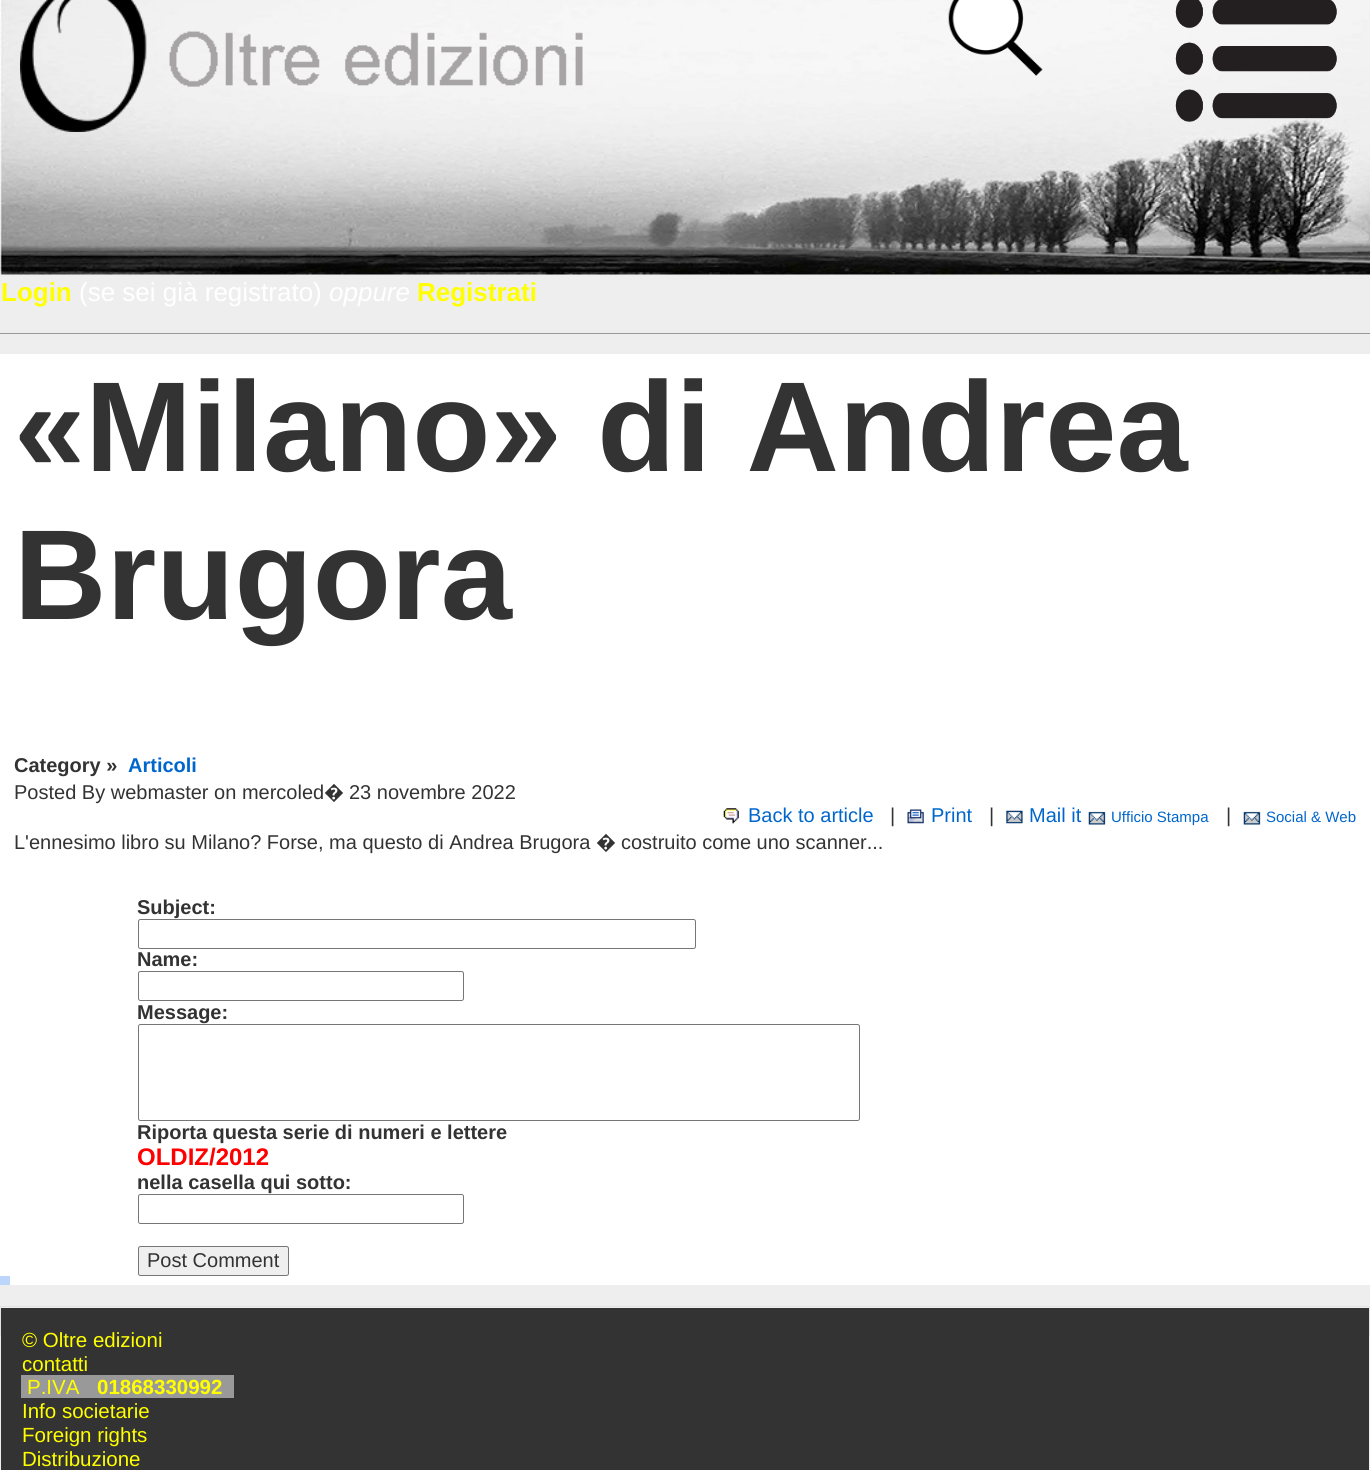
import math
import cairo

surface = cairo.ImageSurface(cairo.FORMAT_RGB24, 1370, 1470)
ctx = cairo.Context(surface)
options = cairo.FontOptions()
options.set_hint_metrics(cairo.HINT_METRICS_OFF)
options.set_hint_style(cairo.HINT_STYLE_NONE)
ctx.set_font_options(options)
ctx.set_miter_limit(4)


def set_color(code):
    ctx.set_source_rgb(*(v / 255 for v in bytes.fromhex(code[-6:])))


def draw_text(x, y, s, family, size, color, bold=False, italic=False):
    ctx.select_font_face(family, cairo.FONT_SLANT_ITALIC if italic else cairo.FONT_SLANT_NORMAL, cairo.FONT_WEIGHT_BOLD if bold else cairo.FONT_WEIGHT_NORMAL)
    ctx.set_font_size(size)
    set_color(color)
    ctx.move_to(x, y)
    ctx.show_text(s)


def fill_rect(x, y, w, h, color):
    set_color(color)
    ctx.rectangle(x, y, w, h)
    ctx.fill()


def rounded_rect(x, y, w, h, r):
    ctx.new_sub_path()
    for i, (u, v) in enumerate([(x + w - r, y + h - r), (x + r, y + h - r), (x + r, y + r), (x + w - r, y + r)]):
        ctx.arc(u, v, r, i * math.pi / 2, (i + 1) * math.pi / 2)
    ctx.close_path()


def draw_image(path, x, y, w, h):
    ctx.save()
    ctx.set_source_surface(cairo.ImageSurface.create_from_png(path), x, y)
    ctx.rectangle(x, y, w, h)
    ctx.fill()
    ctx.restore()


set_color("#eeeeee")
ctx.paint()
draw_image("assets/img1.png", 0, 0, 1370, 275)
fill_rect(0, 333, 1370, 1, "#999999")
draw_image("assets/img2.png", 20, 0, 563, 132)
draw_image("assets/img3.png", 948, 0, 95, 76)
draw_image("assets/img4.png", 1175, 0, 162, 122)
draw_text(1, 301, "Login", "Liberation Sans", 26, "#ffff00", bold=True)
draw_text(79, 301, "(se sei già registrato)", "Liberation Sans", 26, "#ffffff")
draw_text(329, 301, "oppure", "Liberation Sans", 26, "#ffffff", italic=True)
draw_text(417, 301, "Registrati", "Liberation Sans", 26, "#ffff00", bold=True)
fill_rect(0, 354, 1370, 922, "#ffffff")
draw_text(14, 471, "«Milano» di Andrea", "Liberation Sans", 128, "#333333", bold=True)
draw_text(14, 619, "Brugora", "Liberation Sans", 128, "#333333", bold=True)
draw_text(14, 772, "Category »", "Liberation Sans", 20, "#333333", bold=True)
draw_text(128, 772, "Articoli", "Liberation Sans", 20, "#0066cc", bold=True)
draw_text(14, 799, "Posted By webmaster on mercoled", "Liberation Sans", 20, "#333333")
draw_text(324, 799, "�", "Noto Sans", 20, "#333333")
draw_text(349, 799, "23 novembre 2022", "Liberation Sans", 20, "#333333")
draw_image("assets/img5.png", 723, 808, 16, 16)
draw_text(748, 822, "Back to article", "Liberation Sans", 20, "#0066cc")
draw_text(890, 822, "|", "Liberation Sans", 20, "#333333")
draw_image("assets/img6.png", 907, 809, 17, 15)
draw_text(931, 822, "Print", "Liberation Sans", 20, "#0066cc")
draw_text(989, 822, "|", "Liberation Sans", 20, "#333333")
draw_image("assets/img7.png", 1006, 810, 17, 14)
draw_text(1029, 822, "Mail it", "Liberation Sans", 20, "#0066cc")
draw_image("assets/img8.png", 1088, 811, 18, 14)
draw_text(1111, 822, "Ufficio Stampa", "Liberation Sans", 15, "#0066cc")
draw_text(1226, 822, "|", "Liberation Sans", 20, "#333333")
draw_image("assets/img9.png", 1243, 811, 18, 14)
draw_text(1266, 822, "Social & Web", "Liberation Sans", 15, "#0066cc")
draw_text(14, 849, "L'ennesimo libro su Milano? Forse, ma questo di Andrea Brugora", "Liberation Sans", 20, "#333333")
draw_text(596, 849, "�", "Noto Sans", 20, "#333333")
draw_text(621, 849, "costruito come uno scanner...", "Liberation Sans", 20, "#333333")
draw_text(137, 914, "Subject:", "Liberation Sans", 20, "#333333", bold=True)
rounded_rect(138.5, 919.5, 557, 29, 2)
set_color("#767676")
ctx.set_line_width(1)
ctx.stroke()
draw_text(137, 966, "Name:", "Liberation Sans", 20, "#333333", bold=True)
rounded_rect(138.5, 971.5, 325, 29, 2)
set_color("#767676")
ctx.stroke()
draw_text(137, 1019, "Message:", "Liberation Sans", 20, "#333333", bold=True)
rounded_rect(138.5, 1024.5, 721, 96, 2)
set_color("#767676")
ctx.stroke()
draw_text(137, 1139, "Riporta questa serie di numeri e lettere", "Liberation Sans", 20, "#333333", bold=True)
draw_text(137, 1165, "OLDIZ/2012", "Liberation Sans", 24, "#ff0000", bold=True)
draw_text(137, 1189, "nella casella qui sotto:", "Liberation Sans", 20, "#333333", bold=True)
rounded_rect(138.5, 1194.5, 325, 29, 2)
set_color("#767676")
ctx.stroke()
set_color("#efefef")
rounded_rect(138.5, 1246.5, 150, 29, 2)
ctx.fill_preserve()
set_color("#767676")
ctx.stroke()
draw_text(147, 1267, "Post Comment", "Liberation Sans", 20, "#333333")
fill_rect(10, 1276, 1360, 9, "#ffffff")
fill_rect(0, 1276, 10, 9, "#bcd5fa")
ctx.rectangle(0.5, 1306.5, 1369, 29)
set_color("#e3e3e3")
ctx.stroke()
fill_rect(1, 1308, 1368, 162, "#333333")
draw_text(22, 1347, "© Oltre edizioni", "Liberation Sans", 20.5, "#ffff00")
draw_text(22, 1371, "contatti", "Liberation Sans", 20.5, "#ffff00")
fill_rect(21, 1375, 213, 23, "#999999")
draw_text(27, 1394, "P.IVA", "Liberation Sans", 20.5, "#ffff00")
draw_text(97, 1394, "01868330992", "Liberation Sans", 20.5, "#ffff00", bold=True)
draw_text(22, 1418, "Info societarie", "Liberation Sans", 20.5, "#ffff00")
draw_text(22, 1442, "Foreign rights", "Liberation Sans", 20.5, "#ffff00")
draw_text(22, 1466, "Distribuzione", "Liberation Sans", 20.5, "#ffff00")
surface.write_to_png("output.png")
